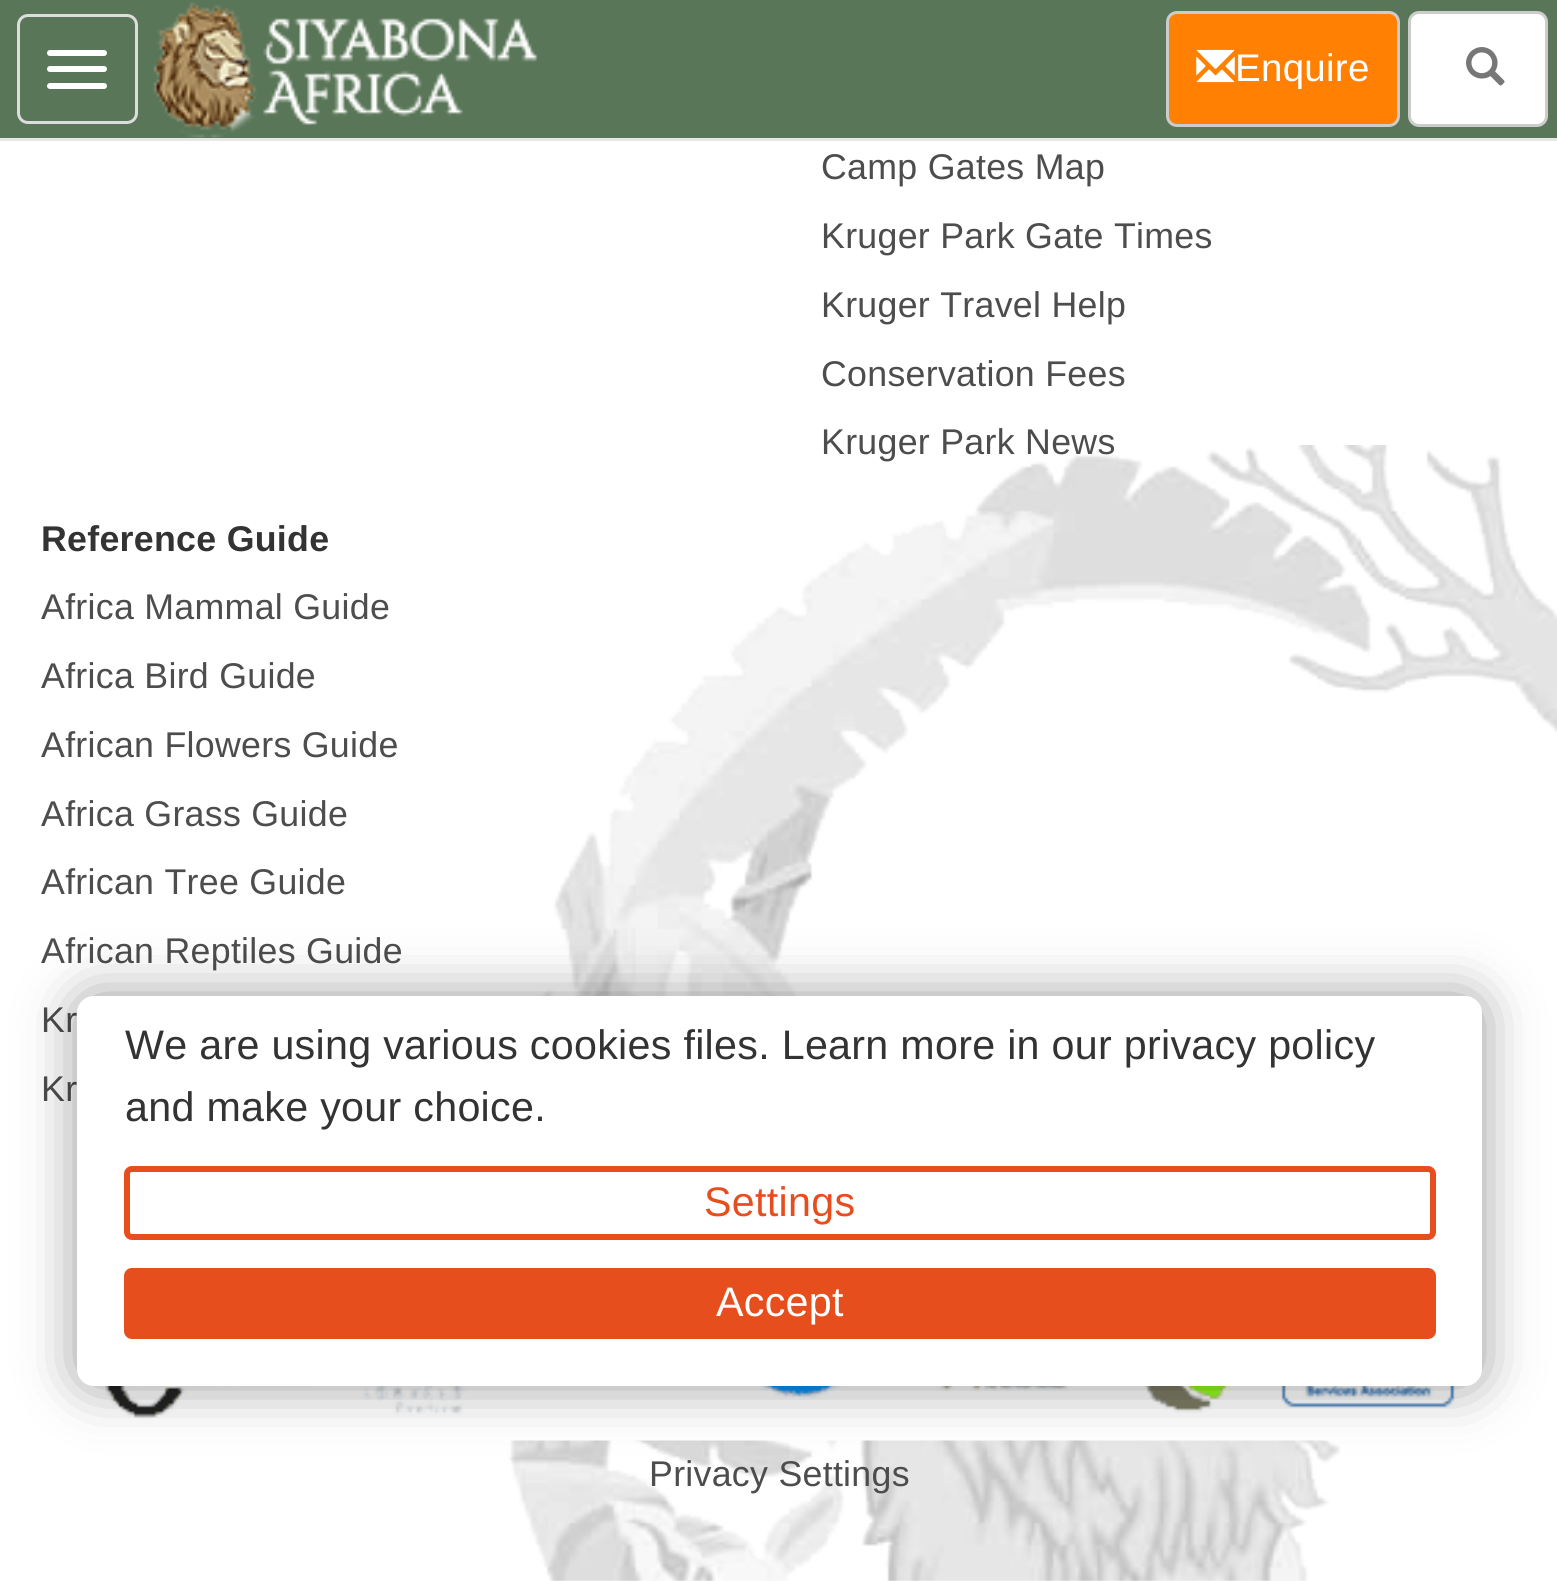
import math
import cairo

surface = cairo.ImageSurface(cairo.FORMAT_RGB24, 1557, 1581)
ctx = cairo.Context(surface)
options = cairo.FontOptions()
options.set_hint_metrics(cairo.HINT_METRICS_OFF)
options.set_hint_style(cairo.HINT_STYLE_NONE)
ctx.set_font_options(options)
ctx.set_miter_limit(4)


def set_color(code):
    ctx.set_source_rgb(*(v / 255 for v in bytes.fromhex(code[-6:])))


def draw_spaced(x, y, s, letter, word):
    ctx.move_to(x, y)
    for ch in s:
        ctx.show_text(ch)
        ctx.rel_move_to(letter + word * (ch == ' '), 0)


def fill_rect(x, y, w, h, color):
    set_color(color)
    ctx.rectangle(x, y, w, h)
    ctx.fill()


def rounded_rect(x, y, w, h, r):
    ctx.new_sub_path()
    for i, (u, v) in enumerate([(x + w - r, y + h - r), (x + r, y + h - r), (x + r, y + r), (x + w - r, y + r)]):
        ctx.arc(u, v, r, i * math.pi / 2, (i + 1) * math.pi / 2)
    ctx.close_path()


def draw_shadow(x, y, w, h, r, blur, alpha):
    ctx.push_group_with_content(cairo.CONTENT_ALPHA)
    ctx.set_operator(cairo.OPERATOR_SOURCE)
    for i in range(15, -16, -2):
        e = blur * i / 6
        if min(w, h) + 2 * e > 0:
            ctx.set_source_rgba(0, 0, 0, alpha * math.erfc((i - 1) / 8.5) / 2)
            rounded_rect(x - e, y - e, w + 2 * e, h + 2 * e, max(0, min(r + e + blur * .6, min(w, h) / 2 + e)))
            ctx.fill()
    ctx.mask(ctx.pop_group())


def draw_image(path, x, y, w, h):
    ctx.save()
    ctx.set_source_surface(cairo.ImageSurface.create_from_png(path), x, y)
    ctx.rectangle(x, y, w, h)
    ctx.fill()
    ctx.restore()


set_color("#ffffff")
ctx.paint()
fill_rect(0, 0, 1557, 138, "#5a7658")
fill_rect(0, 138, 1557, 3, "#e7e7e7")
rounded_rect(18.5, 15.5, 118, 107, 9.5)
set_color("#dddddd")
ctx.set_line_width(3)
ctx.stroke()
set_color("#ffffff")
rounded_rect(47, 50, 60, 6, 3)
ctx.fill()
rounded_rect(47, 66, 60, 6, 3)
ctx.fill()
rounded_rect(47, 83, 60, 6, 3)
ctx.fill()
draw_image("assets/img1.png", 153, 2, 385, 136)
set_color("#ff8003")
rounded_rect(1167.5, 12.5, 231, 113, 9.5)
ctx.fill_preserve()
set_color("#cccccc")
ctx.stroke()
draw_image("assets/img2.png", 1196, 49, 39, 34)
ctx.select_font_face("Liberation Sans")
ctx.set_font_size(38.5)
set_color("#ffffff")
draw_spaced(1235, 81, "Enquire", 0.28, 0)
rounded_rect(1409.5, 12.5, 137, 113, 9.5)
ctx.fill_preserve()
set_color("#cccccc")
ctx.stroke()
draw_image("assets/img3.png", 1466, 47, 39, 39)
draw_image("assets/img4.png", 508, 445, 1049, 1136)
ctx.set_font_size(35.75)
set_color("#4d4d4d")
draw_spaced(821, 179, "Camp Gates Map", 0.28, 0)
draw_spaced(821, 248, "Kruger Park Gate Times", 0.28, 0)
draw_spaced(821, 317, "Kruger Travel Help", 0.28, 0)
draw_spaced(821, 386, "Conservation Fees", 0.28, 0)
draw_spaced(821, 454, "Kruger Park News", 0.28, 0)
ctx.select_font_face("Liberation Sans", cairo.FONT_SLANT_NORMAL, cairo.FONT_WEIGHT_BOLD)
set_color("#333333")
draw_spaced(41, 551, "Reference Guide", 0.28, 0)
ctx.select_font_face("Liberation Sans")
set_color("#4d4d4d")
draw_spaced(41, 619, "Africa Mammal Guide", 0.28, 0)
draw_spaced(41, 688, "Africa Bird Guide", 0.28, 0)
draw_spaced(41, 757, "African Flowers Guide", 0.28, 0)
draw_spaced(41, 826, "Africa Grass Guide", 0.28, 0)
draw_spaced(41, 894, "African Tree Guide", 0.28, 0)
draw_spaced(41, 963, "African Reptiles Guide", 0.28, 0)
draw_spaced(41, 1032, "Kr", 0.28, 0)
draw_spaced(41, 1101, "Kr", 0.28, 0)
draw_image("assets/img5.png", 92, 1385, 1363, 56)
draw_spaced(649, 1486, "Privacy Settings", 0.28, 0)
set_color("#000000")
draw_shadow(77, 996, 1405, 390, 17, 27.5, 0.4)
set_color("#ffffff")
rounded_rect(77, 996, 1405, 390, 17)
ctx.fill()
ctx.set_font_size(41.25)
set_color("#333333")
draw_spaced(125, 1059, "We are using various cookies files. Learn more in our privacy policy", 0.28, 0)
draw_spaced(125, 1121, "and make your choice.", 0.28, 0)
rounded_rect(127, 1169, 1306, 68, 5)
set_color("#e74e1e")
ctx.set_line_width(6)
ctx.stroke()
draw_spaced(704, 1216, "Settings", 0.28, 0)
rounded_rect(127, 1271, 1306, 65, 5)
ctx.fill_preserve()
ctx.stroke()
set_color("#ffffff")
draw_spaced(716, 1316, "Accept", 0.28, 0)
surface.write_to_png("output.png")
